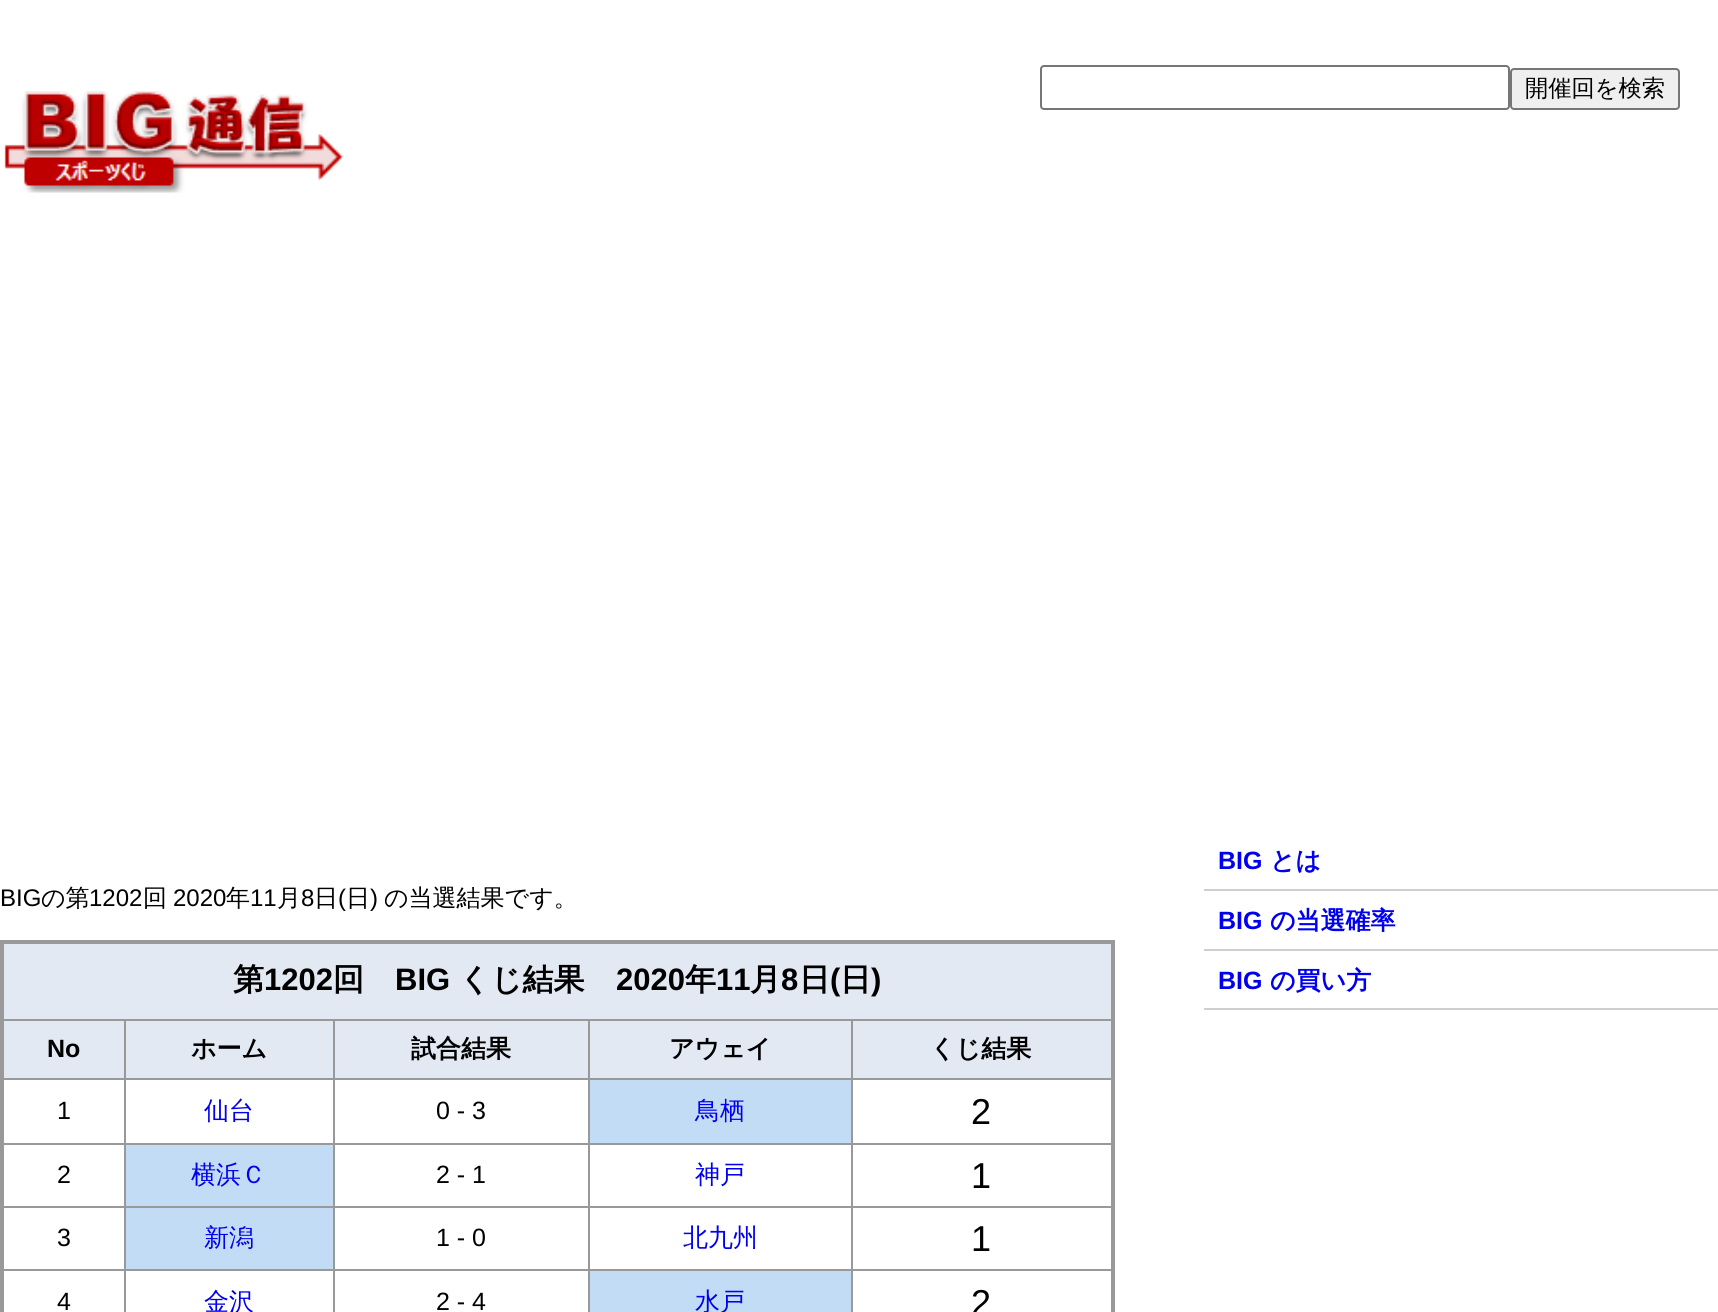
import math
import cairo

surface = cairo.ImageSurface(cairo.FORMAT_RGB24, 1718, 1312)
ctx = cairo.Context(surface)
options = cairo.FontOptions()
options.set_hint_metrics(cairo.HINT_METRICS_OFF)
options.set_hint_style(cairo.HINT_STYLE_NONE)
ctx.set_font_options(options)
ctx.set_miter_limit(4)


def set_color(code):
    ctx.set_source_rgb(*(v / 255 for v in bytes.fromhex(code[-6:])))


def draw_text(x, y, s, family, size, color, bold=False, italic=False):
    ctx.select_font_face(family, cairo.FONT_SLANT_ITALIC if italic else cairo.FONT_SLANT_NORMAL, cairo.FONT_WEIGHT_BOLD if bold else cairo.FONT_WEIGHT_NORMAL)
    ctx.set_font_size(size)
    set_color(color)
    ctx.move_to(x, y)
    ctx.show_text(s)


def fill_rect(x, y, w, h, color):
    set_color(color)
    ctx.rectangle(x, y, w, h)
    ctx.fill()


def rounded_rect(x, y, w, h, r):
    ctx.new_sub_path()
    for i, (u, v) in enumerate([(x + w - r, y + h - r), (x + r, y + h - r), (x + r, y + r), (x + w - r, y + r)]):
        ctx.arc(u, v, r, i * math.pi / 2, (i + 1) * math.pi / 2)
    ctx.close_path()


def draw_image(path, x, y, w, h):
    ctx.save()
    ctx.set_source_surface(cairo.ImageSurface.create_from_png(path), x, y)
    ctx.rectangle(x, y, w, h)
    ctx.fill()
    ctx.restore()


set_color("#ffffff")
ctx.paint()
rounded_rect(1041, 66, 468, 43, 3)
set_color("#767676")
ctx.stroke()
set_color("#efefef")
rounded_rect(1511, 69, 168, 40, 3)
ctx.fill_preserve()
set_color("#767676")
ctx.stroke()
draw_text(1525, 96, "開催回を検索", "WenQuanYi Zen Hei Medium", 23.25, "#000000")
draw_image("assets/img1.png", 4, 91, 340, 102)
draw_text(0, 906, "BIG", "Liberation Sans", 24, "#000000")
draw_text(41, 906, "の第", "WenQuanYi Zen Hei Medium", 24, "#000000")
draw_text(89, 906, "1202", "Liberation Sans", 24, "#000000")
draw_text(143, 906, "回", "WenQuanYi Zen Hei Medium", 24, "#000000")
draw_text(173, 906, "2020", "Liberation Sans", 24, "#000000")
draw_text(226, 906, "年", "WenQuanYi Zen Hei Medium", 24, "#000000")
draw_text(250, 906, "11", "Liberation Sans", 24, "#000000")
draw_text(277, 906, "月", "WenQuanYi Zen Hei Medium", 24, "#000000")
draw_text(301, 906, "8", "Liberation Sans", 24, "#000000")
draw_text(314, 906, "日", "WenQuanYi Zen Hei Medium", 24, "#000000")
draw_text(338, 906, "(", "Liberation Sans", 24, "#000000")
draw_text(346, 906, "日", "WenQuanYi Zen Hei Medium", 24, "#000000")
draw_text(370, 906, ")", "Liberation Sans", 24, "#000000")
draw_text(384, 906, "の当選結果です。", "WenQuanYi Zen Hei Medium", 24, "#000000")
fill_rect(0, 940, 1115, 4, "#999999")
fill_rect(851, 1019, 262, 2, "#999999")
fill_rect(851, 1078, 262, 2, "#999999")
fill_rect(851, 1143, 262, 2, "#999999")
fill_rect(851, 1206, 262, 2, "#999999")
fill_rect(851, 1269, 262, 2, "#999999")
fill_rect(1111, 940, 4, 372, "#999999")
fill_rect(851, 1269, 2, 43, "#999999")
fill_rect(588, 1269, 264, 2, "#999999")
fill_rect(851, 1206, 2, 65, "#999999")
fill_rect(588, 1206, 264, 2, "#999999")
fill_rect(851, 1143, 2, 65, "#999999")
fill_rect(588, 1143, 264, 2, "#999999")
fill_rect(851, 1078, 2, 67, "#999999")
fill_rect(588, 1078, 264, 2, "#999999")
fill_rect(851, 1019, 2, 61, "#999999")
fill_rect(588, 1019, 264, 2, "#999999")
fill_rect(588, 1269, 2, 43, "#999999")
fill_rect(333, 1269, 257, 2, "#999999")
fill_rect(588, 1206, 2, 65, "#999999")
fill_rect(333, 1206, 257, 2, "#999999")
fill_rect(588, 1143, 2, 65, "#999999")
fill_rect(333, 1143, 257, 2, "#999999")
fill_rect(588, 1078, 2, 67, "#999999")
fill_rect(333, 1078, 257, 2, "#999999")
fill_rect(588, 1019, 2, 61, "#999999")
fill_rect(333, 1019, 257, 2, "#999999")
fill_rect(333, 1269, 2, 43, "#999999")
fill_rect(124, 1269, 210, 2, "#999999")
fill_rect(333, 1206, 2, 65, "#999999")
fill_rect(124, 1206, 210, 2, "#999999")
fill_rect(333, 1143, 2, 65, "#999999")
fill_rect(124, 1143, 210, 2, "#999999")
fill_rect(333, 1078, 2, 67, "#999999")
fill_rect(124, 1078, 210, 2, "#999999")
fill_rect(333, 1019, 2, 61, "#999999")
fill_rect(124, 1019, 210, 2, "#999999")
fill_rect(124, 1269, 2, 43, "#999999")
fill_rect(2, 1269, 124, 2, "#999999")
fill_rect(124, 1206, 2, 65, "#999999")
fill_rect(2, 1206, 124, 2, "#999999")
fill_rect(124, 1143, 2, 65, "#999999")
fill_rect(2, 1143, 124, 2, "#999999")
fill_rect(124, 1078, 2, 67, "#999999")
fill_rect(2, 1078, 124, 2, "#999999")
fill_rect(124, 1019, 2, 61, "#999999")
fill_rect(2, 1019, 124, 2, "#999999")
fill_rect(0, 940, 4, 372, "#999999")
fill_rect(4, 944, 1107, 75, "#e3e9f3")
draw_text(233, 990, "第", "WenQuanYi Zen Hei", 31, "#000000", bold=True)
draw_text(264, 990, "1202", "Liberation Sans", 31, "#000000", bold=True)
draw_text(333, 990, "回", "WenQuanYi Zen Hei", 31, "#000000", bold=True)
draw_text(395, 990, "BIG", "Liberation Sans", 31, "#000000", bold=True)
draw_text(459, 990, "くじ結果", "WenQuanYi Zen Hei", 31, "#000000", bold=True)
draw_text(616, 990, "2020", "Liberation Sans", 31, "#000000", bold=True)
draw_text(685, 990, "年", "WenQuanYi Zen Hei", 31, "#000000", bold=True)
draw_text(716, 990, "11", "Liberation Sans", 31, "#000000", bold=True)
draw_text(750, 990, "月", "WenQuanYi Zen Hei", 31, "#000000", bold=True)
draw_text(781, 990, "8", "Liberation Sans", 31, "#000000", bold=True)
draw_text(799, 990, "日", "WenQuanYi Zen Hei", 31, "#000000", bold=True)
draw_text(830, 990, "(", "Liberation Sans", 31, "#000000", bold=True)
draw_text(840, 990, "日", "WenQuanYi Zen Hei", 31, "#000000", bold=True)
draw_text(871, 990, ")", "Liberation Sans", 31, "#000000", bold=True)
fill_rect(4, 1021, 120, 57, "#e3e9f3")
draw_text(47, 1057, "No", "Liberation Sans", 25, "#000000", bold=True)
fill_rect(126, 1021, 207, 57, "#e3e9f3")
draw_text(191, 1057, "ホーム", "WenQuanYi Zen Hei", 25, "#000000", bold=True)
fill_rect(335, 1021, 253, 57, "#e3e9f3")
draw_text(411, 1057, "試合結果", "WenQuanYi Zen Hei", 25, "#000000", bold=True)
fill_rect(590, 1021, 261, 57, "#e3e9f3")
draw_text(669, 1057, "アウェイ", "WenQuanYi Zen Hei", 25, "#000000", bold=True)
fill_rect(853, 1021, 258, 57, "#e3e9f3")
draw_text(930, 1057, "くじ結果", "WenQuanYi Zen Hei", 25, "#000000", bold=True)
draw_text(57, 1119, "1", "Liberation Sans", 25, "#000000")
draw_text(204, 1119, "仙台", "WenQuanYi Zen Hei Medium", 25, "#0000ee")
draw_text(436, 1119, "0 - 3", "Liberation Sans", 25, "#000000")
fill_rect(590, 1080, 261, 63, "#c3dcf6")
draw_text(695, 1119, "鳥栖", "WenQuanYi Zen Hei Medium", 25, "#0000ee")
draw_text(971, 1124, "2", "Liberation Sans", 36, "#000000")
draw_text(57, 1183, "2", "Liberation Sans", 25, "#000000")
fill_rect(126, 1145, 207, 61, "#c3dcf6")
draw_text(191, 1183, "横浜Ｃ", "WenQuanYi Zen Hei Medium", 25, "#0000ee")
draw_text(436, 1183, "2 - 1", "Liberation Sans", 25, "#000000")
draw_text(695, 1183, "神戸", "WenQuanYi Zen Hei Medium", 25, "#0000ee")
draw_text(971, 1188, "1", "Liberation Sans", 36, "#000000")
draw_text(57, 1246, "3", "Liberation Sans", 25, "#000000")
fill_rect(126, 1208, 207, 61, "#c3dcf6")
draw_text(204, 1246, "新潟", "WenQuanYi Zen Hei Medium", 25, "#0000ee")
draw_text(436, 1246, "1 - 0", "Liberation Sans", 25, "#000000")
draw_text(683, 1246, "北九州", "WenQuanYi Zen Hei Medium", 25, "#0000ee")
draw_text(971, 1251, "1", "Liberation Sans", 36, "#000000")
draw_text(57, 1310, "4", "Liberation Sans", 25, "#000000")
draw_text(204, 1310, "金沢", "WenQuanYi Zen Hei Medium", 25, "#0000ee")
draw_text(436, 1310, "2 - 4", "Liberation Sans", 25, "#000000")
fill_rect(590, 1271, 261, 41, "#c3dcf6")
draw_text(695, 1310, "水戸", "WenQuanYi Zen Hei Medium", 25, "#0000ee")
draw_text(971, 1315, "2", "Liberation Sans", 36, "#000000")
fill_rect(1204, 889, 514, 2, "#cfcfcf")
draw_text(1218, 869, "BIG", "Liberation Sans", 25, "#0000ee", bold=True)
draw_text(1270, 869, "とは", "WenQuanYi Zen Hei", 25, "#0000ee", bold=True)
fill_rect(1204, 949, 514, 2, "#cfcfcf")
draw_text(1218, 929, "BIG", "Liberation Sans", 25, "#0000ee", bold=True)
draw_text(1270, 929, "の当選確率", "WenQuanYi Zen Hei", 25, "#0000ee", bold=True)
fill_rect(1204, 1008, 514, 2, "#cfcfcf")
draw_text(1218, 989, "BIG", "Liberation Sans", 25, "#0000ee", bold=True)
draw_text(1270, 989, "の買い方", "WenQuanYi Zen Hei", 25, "#0000ee", bold=True)
surface.write_to_png("output.png")
